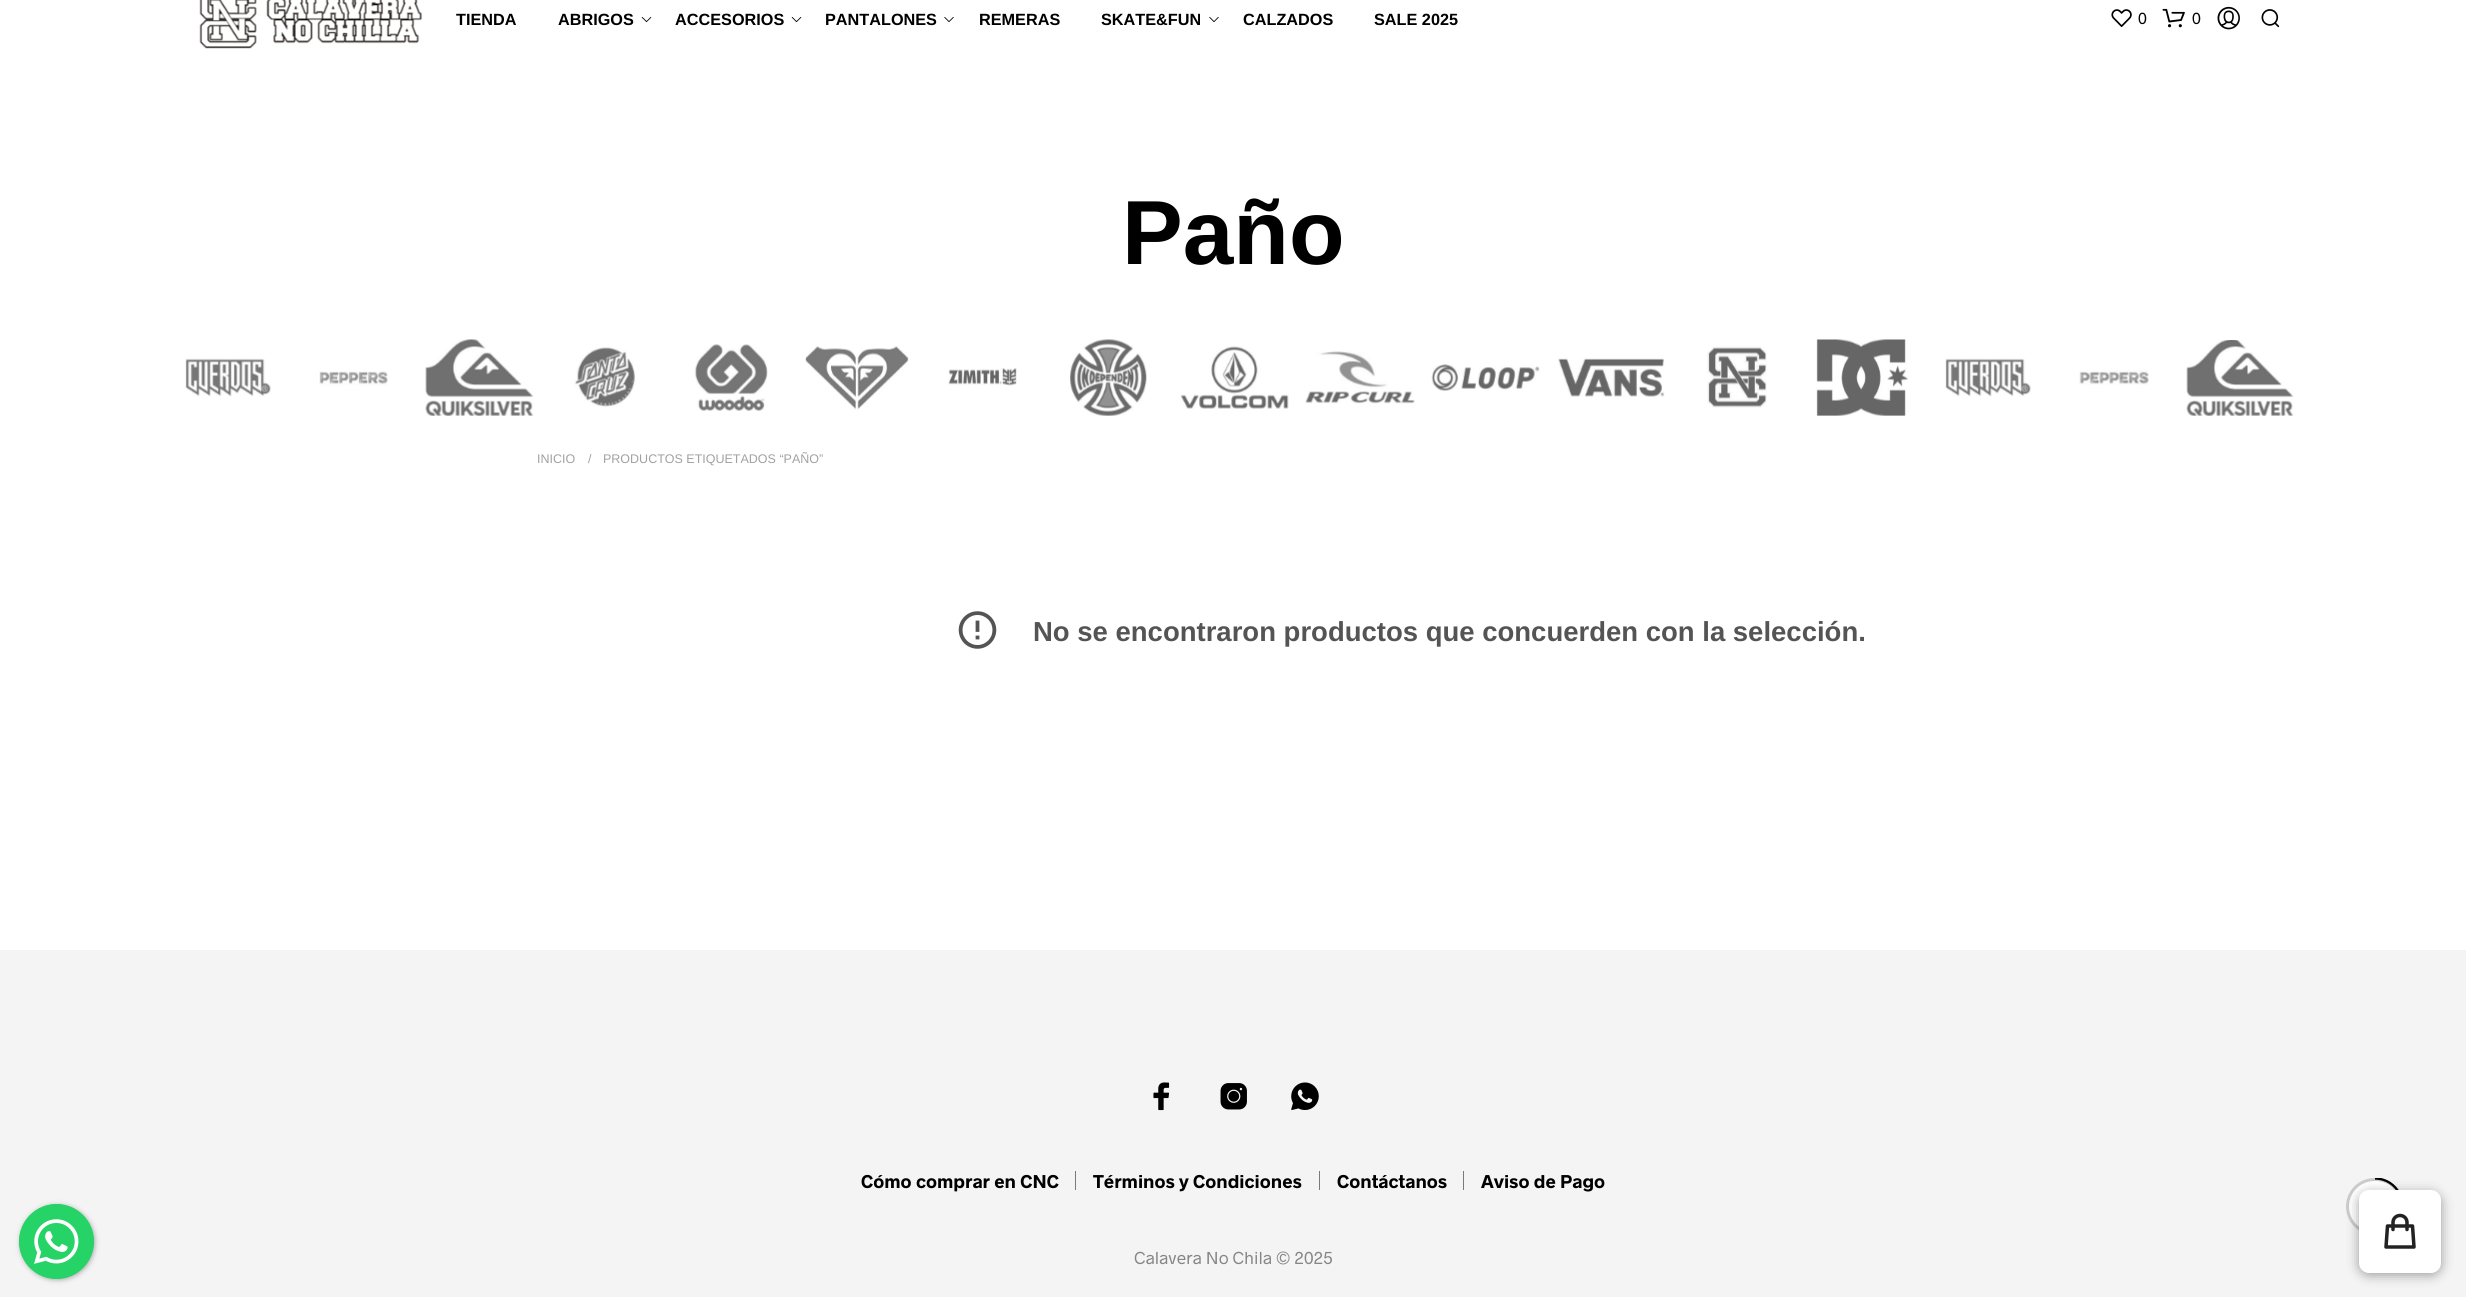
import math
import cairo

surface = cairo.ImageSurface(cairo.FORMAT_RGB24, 2466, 1297)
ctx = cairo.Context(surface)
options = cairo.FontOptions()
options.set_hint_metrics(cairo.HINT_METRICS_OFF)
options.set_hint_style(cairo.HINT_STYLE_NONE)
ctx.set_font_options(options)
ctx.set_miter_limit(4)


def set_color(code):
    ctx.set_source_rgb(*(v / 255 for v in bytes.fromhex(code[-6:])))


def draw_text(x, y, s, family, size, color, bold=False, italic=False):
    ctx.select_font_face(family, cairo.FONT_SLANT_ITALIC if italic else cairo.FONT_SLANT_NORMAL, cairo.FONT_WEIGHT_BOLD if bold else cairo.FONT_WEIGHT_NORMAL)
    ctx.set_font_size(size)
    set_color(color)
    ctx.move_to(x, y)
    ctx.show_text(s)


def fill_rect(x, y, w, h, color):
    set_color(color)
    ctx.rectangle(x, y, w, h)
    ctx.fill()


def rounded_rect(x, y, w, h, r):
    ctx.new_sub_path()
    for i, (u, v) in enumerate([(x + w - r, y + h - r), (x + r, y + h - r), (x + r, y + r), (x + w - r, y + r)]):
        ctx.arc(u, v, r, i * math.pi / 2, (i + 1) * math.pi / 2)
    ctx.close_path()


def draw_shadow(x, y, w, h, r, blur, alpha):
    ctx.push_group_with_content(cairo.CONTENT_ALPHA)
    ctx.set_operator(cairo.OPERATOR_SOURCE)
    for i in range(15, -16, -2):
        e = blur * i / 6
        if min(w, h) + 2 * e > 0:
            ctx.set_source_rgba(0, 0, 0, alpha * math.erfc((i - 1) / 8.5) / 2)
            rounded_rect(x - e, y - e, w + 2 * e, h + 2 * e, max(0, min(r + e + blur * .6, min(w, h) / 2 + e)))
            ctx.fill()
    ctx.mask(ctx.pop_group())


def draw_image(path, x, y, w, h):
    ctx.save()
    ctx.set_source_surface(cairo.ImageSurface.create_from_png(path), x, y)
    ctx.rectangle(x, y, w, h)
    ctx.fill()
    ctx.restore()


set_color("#ffffff")
ctx.paint()
draw_image("assets/img1.png", 199, 0, 223, 49)
draw_text(456, 25, "TIENDA", "Liberation Sans", 16.25, "#000000", bold=True)
draw_text(558, 25, "ABRIGOS", "Liberation Sans", 16.25, "#000000", bold=True)
draw_image("assets/img2.png", 641, 17, 11, 6)
draw_text(675, 25, "ACCESORIOS", "Liberation Sans", 16.25, "#000000", bold=True)
draw_image("assets/img2.png", 791, 17, 11, 6)
draw_text(825, 25, "PANTALONES", "Liberation Sans", 16.25, "#000000", bold=True)
draw_image("assets/img3.png", 944, 17, 10, 5)
draw_text(979, 25, "REMERAS", "Liberation Sans", 16.25, "#000000", bold=True)
draw_text(1101, 25, "SKATE&FUN", "Liberation Sans", 16.25, "#000000", bold=True)
draw_image("assets/img3.png", 1209, 17, 10, 5)
draw_text(1243, 25, "CALZADOS", "Liberation Sans", 16.25, "#000000", bold=True)
draw_text(1374, 25, "SALE 2025", "Liberation Sans", 16.25, "#000000", bold=True)
draw_image("assets/img4.png", 2111, 9, 21, 18)
draw_text(2138, 24, "0", "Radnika", 16.25, "#000000")
draw_image("assets/img5.png", 2162, 8, 23, 20)
draw_text(2192, 24, "0", "Radnika", 16.25, "#000000")
draw_image("assets/img6.png", 2217, 6, 23, 24)
draw_image("assets/img7.png", 2261, 9, 19, 19)
draw_text(1122, 264, "Paño", "Liberation Sans", 91, "#000000", bold=True)
draw_image("assets/img8.png", 185, 358, 86, 39)
draw_image("assets/img9.png", 319, 371, 69, 15)
draw_image("assets/img10.png", 425, 339, 109, 77)
draw_image("assets/img11.png", 574, 347, 62, 60)
draw_image("assets/img12.png", 694, 344, 74, 67)
draw_image("assets/img13.png", 805, 346, 104, 64)
draw_image("assets/img14.png", 948, 368, 69, 18)
draw_image("assets/img15.png", 1070, 339, 77, 77)
draw_image("assets/img16.png", 1180, 346, 109, 63)
draw_image("assets/img17.png", 1305, 351, 110, 53)
draw_image("assets/img18.png", 1431, 364, 109, 27)
draw_image("assets/img19.png", 1558, 358, 107, 39)
draw_image("assets/img20.png", 1707, 346, 60, 62)
draw_image("assets/img21.png", 1816, 339, 92, 77)
draw_image("assets/img8.png", 1945, 358, 86, 39)
draw_image("assets/img22.png", 2079, 370, 70, 15)
draw_image("assets/img23.png", 2186, 340, 108, 76)
draw_text(537, 463, "INICIO", "Liberation Sans", 12.5, "#a1a1a1")
draw_text(588, 463, "/", "Liberation Sans", 12.5, "#a1a1a1")
draw_text(603, 463, "PRODUCTOS ETIQUETADOS “PAÑO”", "Liberation Sans", 12.5, "#a1a1a1")
draw_image("assets/img24.png", 958, 611, 39, 38)
draw_text(1033, 641, "No se encontraron productos que concuerden con la selección.", "Liberation Sans", 27.5, "#545454", bold=True)
fill_rect(0, 950, 2466, 347, "#f4f4f4")
draw_image("assets/img25.png", 1153, 1082, 17, 29)
draw_image("assets/img26.png", 1220, 1083, 27, 27)
draw_image("assets/img27.png", 1291, 1082, 28, 28)
draw_text(861, 1188, "Cómo comprar en CNC", "Radnika", 18.75, "#000000", bold=True)
fill_rect(1075, 1171, 1, 19, "#7a7a7a")
draw_text(1093, 1188, "Términos y Condiciones", "Radnika", 18.75, "#000000", bold=True)
fill_rect(1319, 1171, 1, 19, "#7a7a7a")
draw_text(1337, 1188, "Contáctanos", "Radnika", 18.75, "#000000", bold=True)
fill_rect(1463, 1171, 1, 19, "#7a7a7a")
draw_text(1481, 1188, "Aviso de Pago", "Radnika", 18.75, "#000000", bold=True)
draw_text(1134, 1264, "Calavera No Chila © 2025", "Radnika", 17.5, "#868686")
set_color("#ffffff")
rounded_rect(2346, 1178, 58, 57, 28.5)
ctx.fill()
rounded_rect(2347.5, 1179.5, 55, 54, 27)
ctx.set_source_rgba(0, 0, 0, 0.2)
ctx.set_line_width(3)
ctx.stroke()
ctx.save()
ctx.rectangle(2346, 1178, 58, 57)
ctx.clip()
ctx.new_path()
ctx.move_to(2375, 1178.5)
ctx.curve_to(2397.5, 1178.5, 2410.5, 1204.5, 2397.5, 1222.5)
set_color("#000000")
ctx.set_line_width(2.3)
ctx.stroke()
ctx.restore()
set_color("#000000")
draw_shadow(2359, 1193, 82, 82, 10, 6, 0.37)
set_color("#ffffff")
rounded_rect(2359, 1190, 82, 83, 10)
ctx.fill()
ctx.new_path()
ctx.move_to(2407, 1229.5)
ctx.line_to(2407, 1222.5)
ctx.curve_to(2407, 1218.5, 2404, 1215.5, 2400, 1215.5)
ctx.curve_to(2396, 1215.5, 2393, 1218.5, 2393, 1222.5)
ctx.line_to(2393, 1229.5)
ctx.move_to(2387.5, 1226)
ctx.line_to(2412.5, 1226)
ctx.line_to(2414, 1247)
ctx.line_to(2386, 1247)
ctx.close_path()
set_color("#222222")
ctx.set_line_width(3.5)
ctx.set_line_cap(cairo.LINE_CAP_ROUND)
ctx.set_line_join(cairo.LINE_JOIN_ROUND)
ctx.stroke()
set_color("#3c3c3c")
draw_shadow(20, 1205, 75, 75, 37.5, 2.5, 0.4)
set_color("#25d366")
ctx.arc(56.5, 1241.5, 37.5, 0, 2 * math.pi)
ctx.fill()
draw_image("assets/img28.png", 19, 1204, 75, 75)
surface.write_to_png("output.png")
